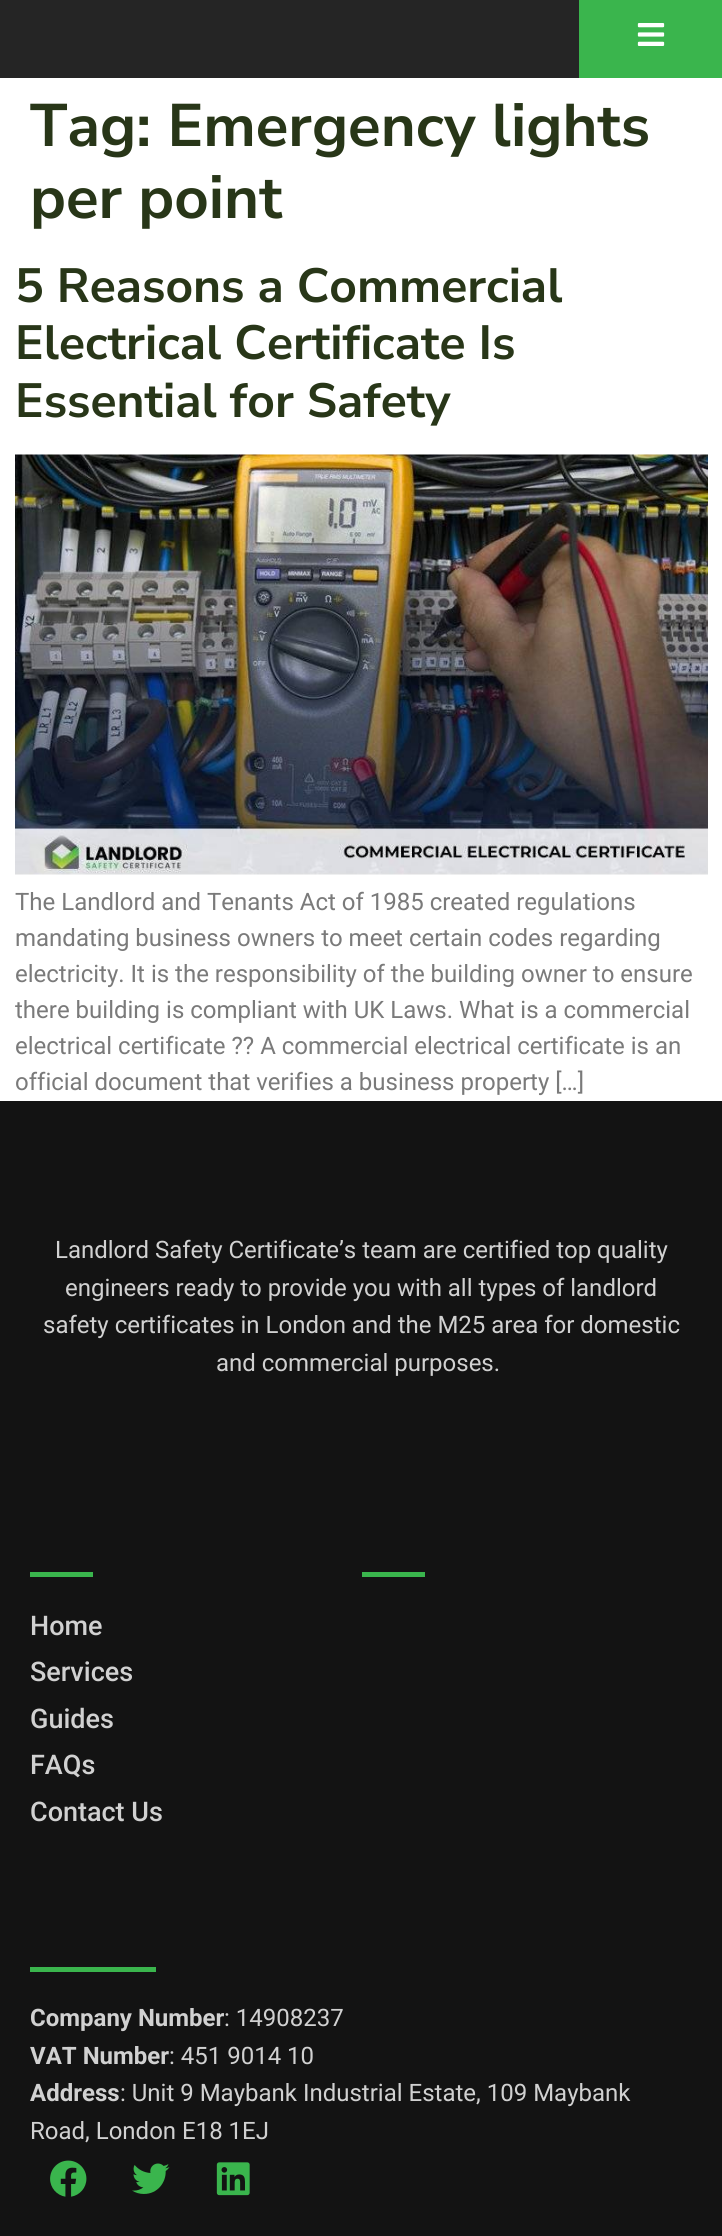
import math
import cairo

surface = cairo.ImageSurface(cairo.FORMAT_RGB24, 722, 2236)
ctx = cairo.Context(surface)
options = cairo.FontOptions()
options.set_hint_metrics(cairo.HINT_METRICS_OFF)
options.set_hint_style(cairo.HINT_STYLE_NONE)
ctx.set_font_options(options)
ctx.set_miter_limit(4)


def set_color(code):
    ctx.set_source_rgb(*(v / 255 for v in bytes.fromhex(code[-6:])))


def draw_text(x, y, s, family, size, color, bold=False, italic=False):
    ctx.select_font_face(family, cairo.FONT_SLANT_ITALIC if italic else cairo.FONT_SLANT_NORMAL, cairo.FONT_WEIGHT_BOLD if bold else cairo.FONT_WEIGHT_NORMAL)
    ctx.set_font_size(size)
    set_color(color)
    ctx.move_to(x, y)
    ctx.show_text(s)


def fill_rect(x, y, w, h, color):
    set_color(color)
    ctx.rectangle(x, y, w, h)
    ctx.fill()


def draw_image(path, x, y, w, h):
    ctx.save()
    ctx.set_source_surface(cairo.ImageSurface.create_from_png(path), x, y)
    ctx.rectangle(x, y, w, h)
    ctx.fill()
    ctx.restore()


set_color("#ffffff")
ctx.paint()
fill_rect(0, 0, 579, 78, "#252525")
fill_rect(579, 0, 143, 78, "#3ab54d")
draw_image("assets/img1.png", 637, 23, 28, 23)
draw_text(30, 146, "Tag: Emergency lights", "Nunito Sans", 60, "#283618", bold=True)
draw_text(30, 218, "per point", "Nunito Sans", 60, "#283618", bold=True)
draw_text(15, 302, "5 Reasons a Commercial", "Nunito Sans", 48, "#283618", bold=True)
draw_text(15, 359, "Electrical Certificate Is", "Nunito Sans", 48, "#283618", bold=True)
draw_text(15, 417, "Essential for Safety", "Nunito Sans", 48, "#283618", bold=True)
draw_image("assets/img2.png", 15, 454, 693, 421)
draw_text(15, 910, "The Landlord and Tenants Act of 1985 created regulations", "Roboto", 24, "#7a7a7a")
draw_text(15, 946, "mandating business owners to meet certain codes regarding", "Roboto", 24, "#7a7a7a")
draw_text(15, 982, "electricity. It is the responsibility of the building owner to ensure", "Roboto", 24, "#7a7a7a")
draw_text(15, 1018, "there building is compliant with UK Laws. What is a commercial", "Roboto", 24, "#7a7a7a")
draw_text(15, 1054, "electrical certificate ?? A commercial electrical certificate is an", "Roboto", 24, "#7a7a7a")
draw_text(15, 1090, "official document that verifies a business property […]", "Roboto", 24, "#7a7a7a")
fill_rect(0, 1101, 722, 1135, "#131313")
draw_text(55, 1258, "Landlord Safety Certificate’s team are certified top quality", "Roboto", 24, "#d1d1d1")
draw_text(65, 1296, "engineers ready to provide you with all types of landlord", "Roboto", 24, "#d1d1d1")
draw_text(43, 1333, "safety certificates in London and the M25 area for domestic", "Roboto", 24, "#d1d1d1")
draw_text(216, 1371, "and commercial purposes.", "Roboto", 24, "#d1d1d1")
fill_rect(362, 1572, 63, 5, "#3ab54d")
fill_rect(30, 1572, 63, 5, "#3ab54d")
draw_text(30, 1635, "Home", "Roboto Medium", 27, "#d1d1d1")
draw_text(30, 1681, "Services", "Roboto Medium", 27, "#d1d1d1")
draw_text(30, 1728, "Guides", "Roboto Medium", 27, "#d1d1d1")
draw_text(30, 1774, "FAQs", "Roboto Medium", 27, "#d1d1d1")
draw_text(30, 1821, "Contact Us", "Roboto Medium", 27, "#d1d1d1")
fill_rect(30, 1967, 126, 5, "#3ab54d")
draw_text(30, 2026, "Company Number", "Roboto", 24, "#d1d1d1", bold=True)
draw_text(224, 2026, ": 14908237", "Roboto", 24, "#d1d1d1")
draw_text(30, 2064, "VAT Number", "Roboto", 24, "#d1d1d1", bold=True)
draw_text(169, 2064, ": 451 9014 10", "Roboto", 24, "#d1d1d1")
draw_text(30, 2101, "Address", "Roboto", 24, "#d1d1d1", bold=True)
draw_text(120, 2101, ": Unit 9 Maybank Industrial Estate, 109 Maybank", "Roboto", 24, "#d1d1d1")
draw_text(30, 2139, "Road, London E18 1EJ", "Roboto", 24, "#d1d1d1")
draw_image("assets/img3.png", 50, 2160, 37, 37)
draw_image("assets/img4.png", 132, 2163, 38, 31)
draw_image("assets/img5.png", 216, 2162, 34, 34)
surface.write_to_png("output.png")
